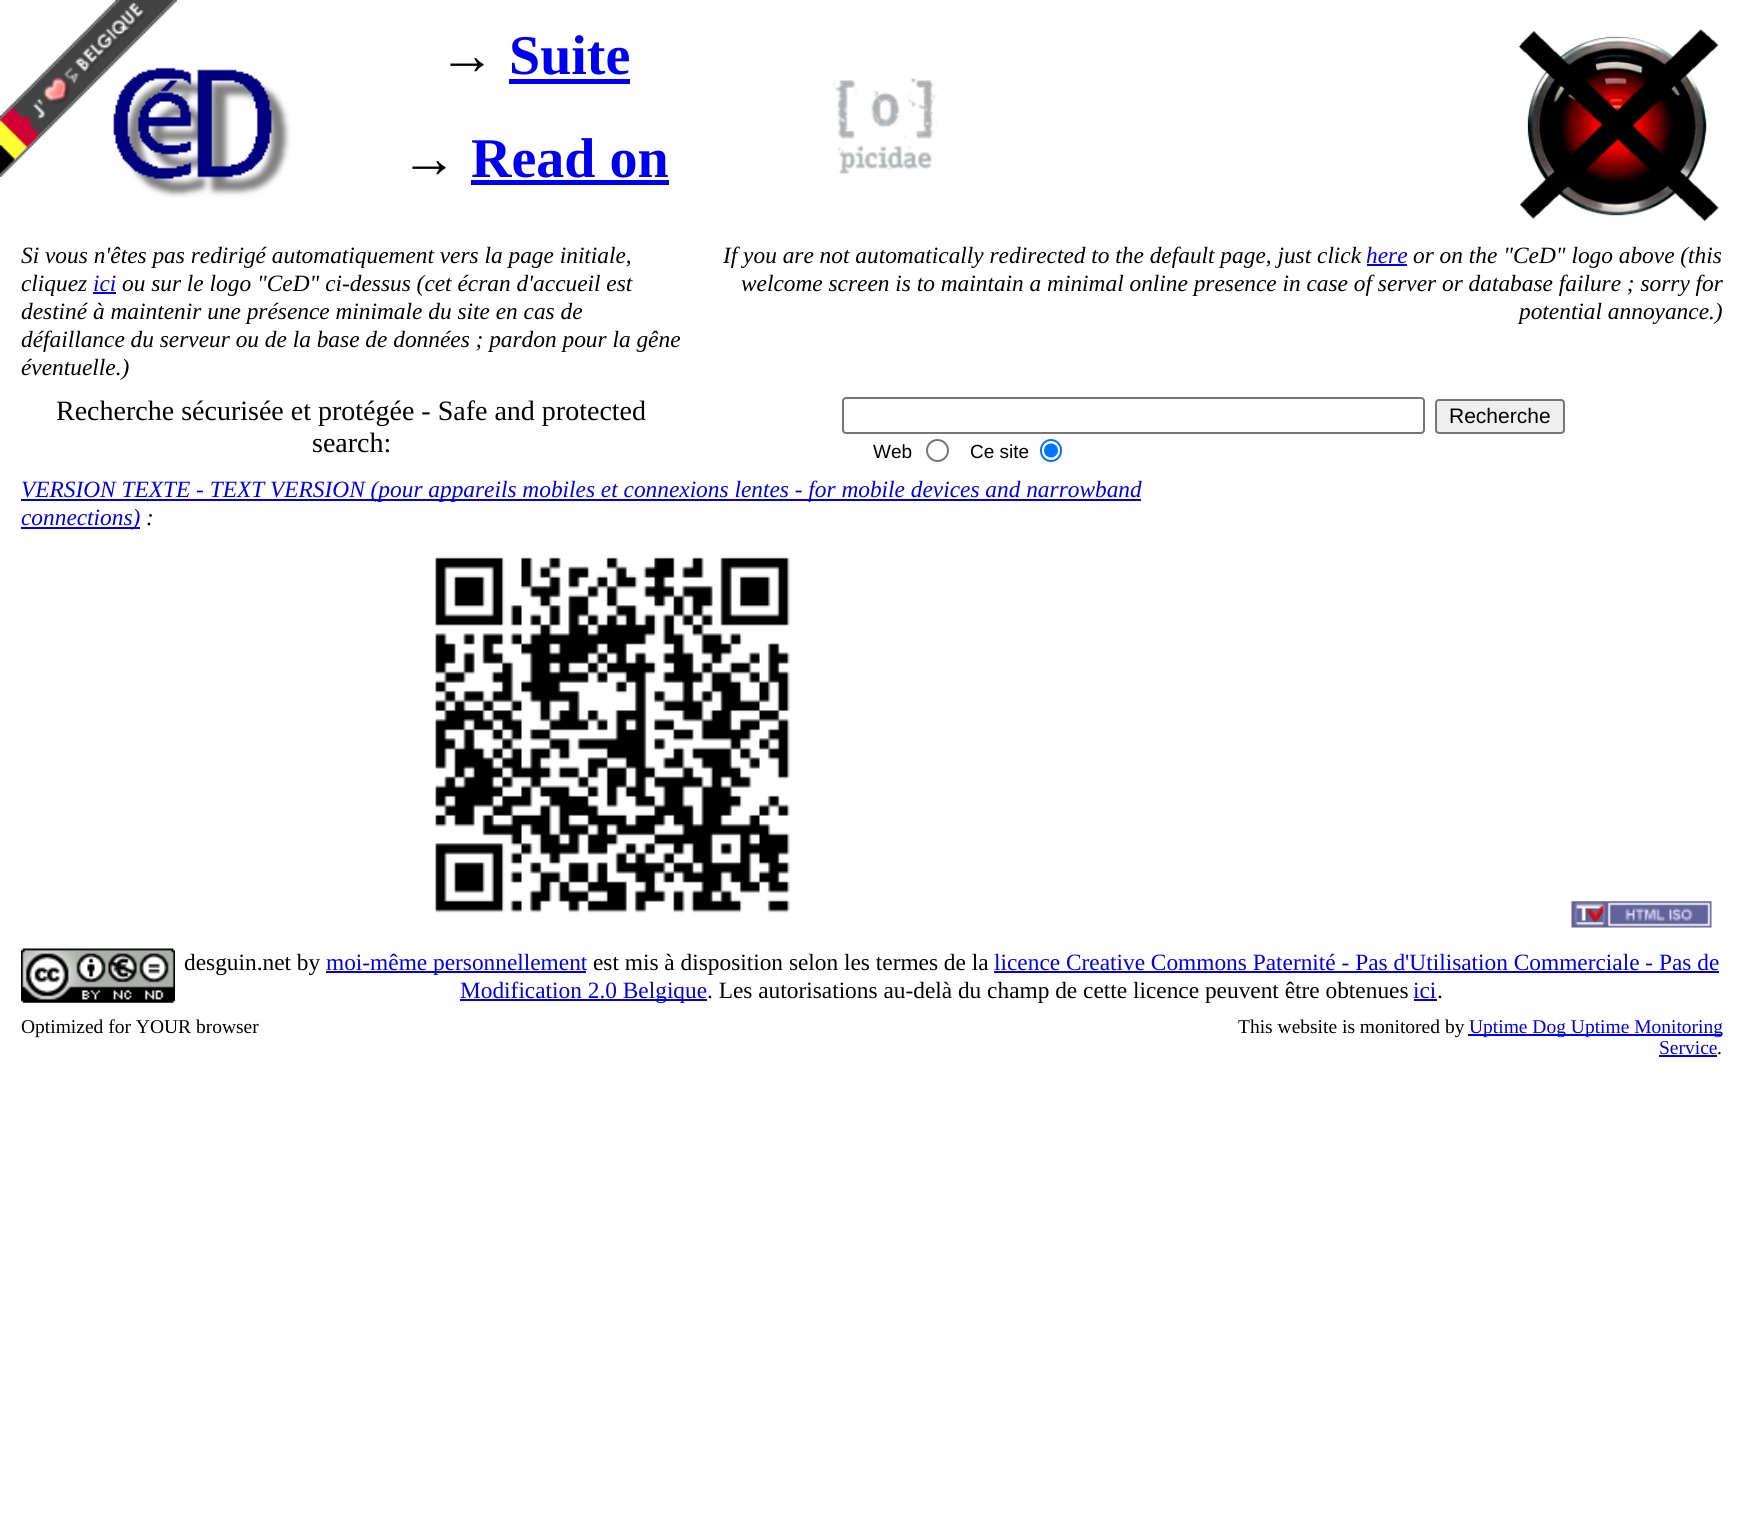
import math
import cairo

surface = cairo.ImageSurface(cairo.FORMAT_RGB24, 1742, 1515)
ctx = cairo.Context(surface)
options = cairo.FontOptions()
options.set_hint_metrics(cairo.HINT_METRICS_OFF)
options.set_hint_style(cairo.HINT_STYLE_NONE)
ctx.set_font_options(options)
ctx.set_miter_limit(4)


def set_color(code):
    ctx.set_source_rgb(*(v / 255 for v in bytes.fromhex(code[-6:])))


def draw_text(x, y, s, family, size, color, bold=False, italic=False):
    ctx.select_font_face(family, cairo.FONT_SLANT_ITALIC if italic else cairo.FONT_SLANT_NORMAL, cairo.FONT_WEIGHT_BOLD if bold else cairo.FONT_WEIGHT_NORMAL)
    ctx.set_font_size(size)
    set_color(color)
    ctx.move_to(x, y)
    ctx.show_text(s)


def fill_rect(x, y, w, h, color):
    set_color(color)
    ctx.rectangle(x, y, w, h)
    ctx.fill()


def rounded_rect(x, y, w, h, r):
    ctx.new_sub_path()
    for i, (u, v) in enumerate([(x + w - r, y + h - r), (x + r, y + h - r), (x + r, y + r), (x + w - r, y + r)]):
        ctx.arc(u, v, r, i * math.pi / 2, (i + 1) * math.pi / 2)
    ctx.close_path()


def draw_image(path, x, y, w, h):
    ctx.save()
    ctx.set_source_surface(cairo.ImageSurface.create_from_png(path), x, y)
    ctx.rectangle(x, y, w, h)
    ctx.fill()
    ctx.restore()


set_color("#ffffff")
ctx.paint()
draw_image("assets/img2.png", 113, 67, 178, 131)
draw_image("assets/img1.png", 0, 0, 177, 177)
draw_text(439, 74, "→", "Liberation Serif", 56, "#000000", bold=True)
draw_text(509, 74, "Suite", "Liberation Serif", 56, "#0000ee", bold=True)
fill_rect(509, 79, 121, 5, "#0000ee")
draw_text(401, 177, "→", "Liberation Serif", 56, "#000000", bold=True)
draw_text(471, 177, "Read on", "Liberation Serif", 56, "#0000ee", bold=True)
fill_rect(471, 180, 198, 5, "#0000ee")
draw_image("assets/img3.png", 833, 78, 105, 96)
draw_image("assets/img4.png", 1518, 29, 201, 192)
draw_text(21, 263, "Si vous n'êtes pas redirigé automatiquement vers la page initiale,", "Liberation Serif", 23.35, "#000000", italic=True)
draw_text(21, 291, "cliquez", "Liberation Serif", 23.35, "#000000", italic=True)
draw_text(93, 291, "ici", "Liberation Serif", 23.35, "#0000ee", italic=True)
fill_rect(93, 292, 23, 2, "#0000ee")
draw_text(122, 291, "ou sur le logo \"CeD\" ci-dessus (cet écran d'accueil est", "Liberation Serif", 23.35, "#000000", italic=True)
draw_text(21, 319, "destiné à maintenir une présence minimale du site en cas de", "Liberation Serif", 23.35, "#000000", italic=True)
draw_text(21, 347, "défaillance du serveur ou de la base de données ; pardon pour la gêne", "Liberation Serif", 23.35, "#000000", italic=True)
draw_text(21, 375, "éventuelle.)", "Liberation Serif", 23.35, "#000000", italic=True)
draw_text(723, 263, "If you are not automatically redirected to the default page, just click", "Liberation Serif", 23.35, "#000000", italic=True)
draw_text(1366, 263, "here", "Liberation Serif", 23.35, "#0000ee", italic=True)
fill_rect(1367, 264, 40, 2, "#0000ee")
draw_text(1413, 263, "or on the \"CeD\" logo above (this", "Liberation Serif", 23.35, "#000000", italic=True)
draw_text(741, 291, "welcome screen is to maintain a minimal online presence in case of server or database failure ; sorry for", "Liberation Serif", 23.35, "#000000", italic=True)
draw_text(1519, 319, "potential annoyance.)", "Liberation Serif", 23.35, "#000000", italic=True)
draw_text(56, 420, "Recherche sécurisée et protégée - Safe and protected", "Liberation Serif", 28, "#000000")
draw_text(312, 452, "search:", "Liberation Serif", 28, "#000000")
rounded_rect(843, 398, 581, 35, 3)
set_color("#767676")
ctx.stroke()
set_color("#efefef")
rounded_rect(1436, 400, 128, 33, 3)
ctx.fill_preserve()
set_color("#767676")
ctx.stroke()
draw_text(1449, 423, "Recherche", "Liberation Sans", 21, "#000000")
draw_text(873, 458, "Web", "Liberation Sans", 19, "#000000")
ctx.new_path()
ctx.arc(937.5, 450.5, 10.5, 0, 2 * math.pi)
set_color("#767676")
ctx.stroke()
draw_text(970, 458, "Ce site", "Liberation Sans", 19, "#000000")
rounded_rect(1041, 440, 20, 21, 10)
set_color("#0075ff")
ctx.stroke()
ctx.arc(1051, 450.5, 7, 0, 2 * math.pi)
ctx.fill()
fill_rect(21, 499, 1120, 2, "#0000ee")
draw_text(21, 497, "VERSION TEXTE - TEXT VERSION (pour appareils mobiles et connexions lentes - for mobile devices and narrowband", "Liberation Serif", 23.35, "#0000ee", italic=True)
fill_rect(21, 527, 119, 2, "#0000ee")
draw_text(21, 525, "connections)", "Liberation Serif", 23.35, "#0000ee", italic=True)
draw_text(146, 525, ":", "Liberation Serif", 23.35, "#000000", italic=True)
draw_image("assets/img5.png", 435, 556, 355, 357)
draw_image("assets/img6.png", 1571, 901, 141, 27)
draw_image("assets/img7.png", 21, 948, 154, 55)
draw_text(184, 970, "desguin.net by", "Liberation Serif", 23.35, "#000000")
fill_rect(326, 971, 260, 2, "#0000ee")
draw_text(326, 970, "moi-même personnellement", "Liberation Serif", 23.35, "#0000ee")
draw_text(593, 970, "est mis à disposition selon les termes de la", "Liberation Serif", 23.35, "#000000")
draw_text(994, 970, "licence Creative Commons Paternité - Pas d'Utilisation Commerciale - Pas de", "Liberation Serif", 23.35, "#0000ee")
fill_rect(994, 971, 725, 2, "#0000ee")
fill_rect(460, 999, 247, 2, "#0000ee")
draw_text(460, 998, "Modification 2.0 Belgique", "Liberation Serif", 23.35, "#0000ee")
draw_text(707, 998, ". Les autorisations au-delà du champ de cette licence peuvent être obtenues", "Liberation Serif", 23.35, "#000000")
draw_text(1413, 998, "ici", "Liberation Serif", 23.35, "#0000ee")
draw_text(1437, 998, ".", "Liberation Serif", 23.35, "#000000")
fill_rect(1414, 999, 23, 2, "#0000ee")
draw_text(21, 1033, "Optimized for YOUR browser", "Liberation Serif", 19.5, "#000000")
draw_text(1238, 1033, "This website is monitored by", "Liberation Serif", 19.5, "#000000")
fill_rect(1468, 1034, 254, 2, "#0000ee")
draw_text(1469, 1033, "Uptime Dog Uptime Monitoring", "Liberation Serif", 19.5, "#0000ee")
draw_text(1659, 1054, "Service", "Liberation Serif", 19.5, "#0000ee")
draw_text(1717, 1054, ".", "Liberation Serif", 19.5, "#000000")
fill_rect(1659, 1055, 58, 2, "#0000ee")
surface.write_to_png("output.png")
